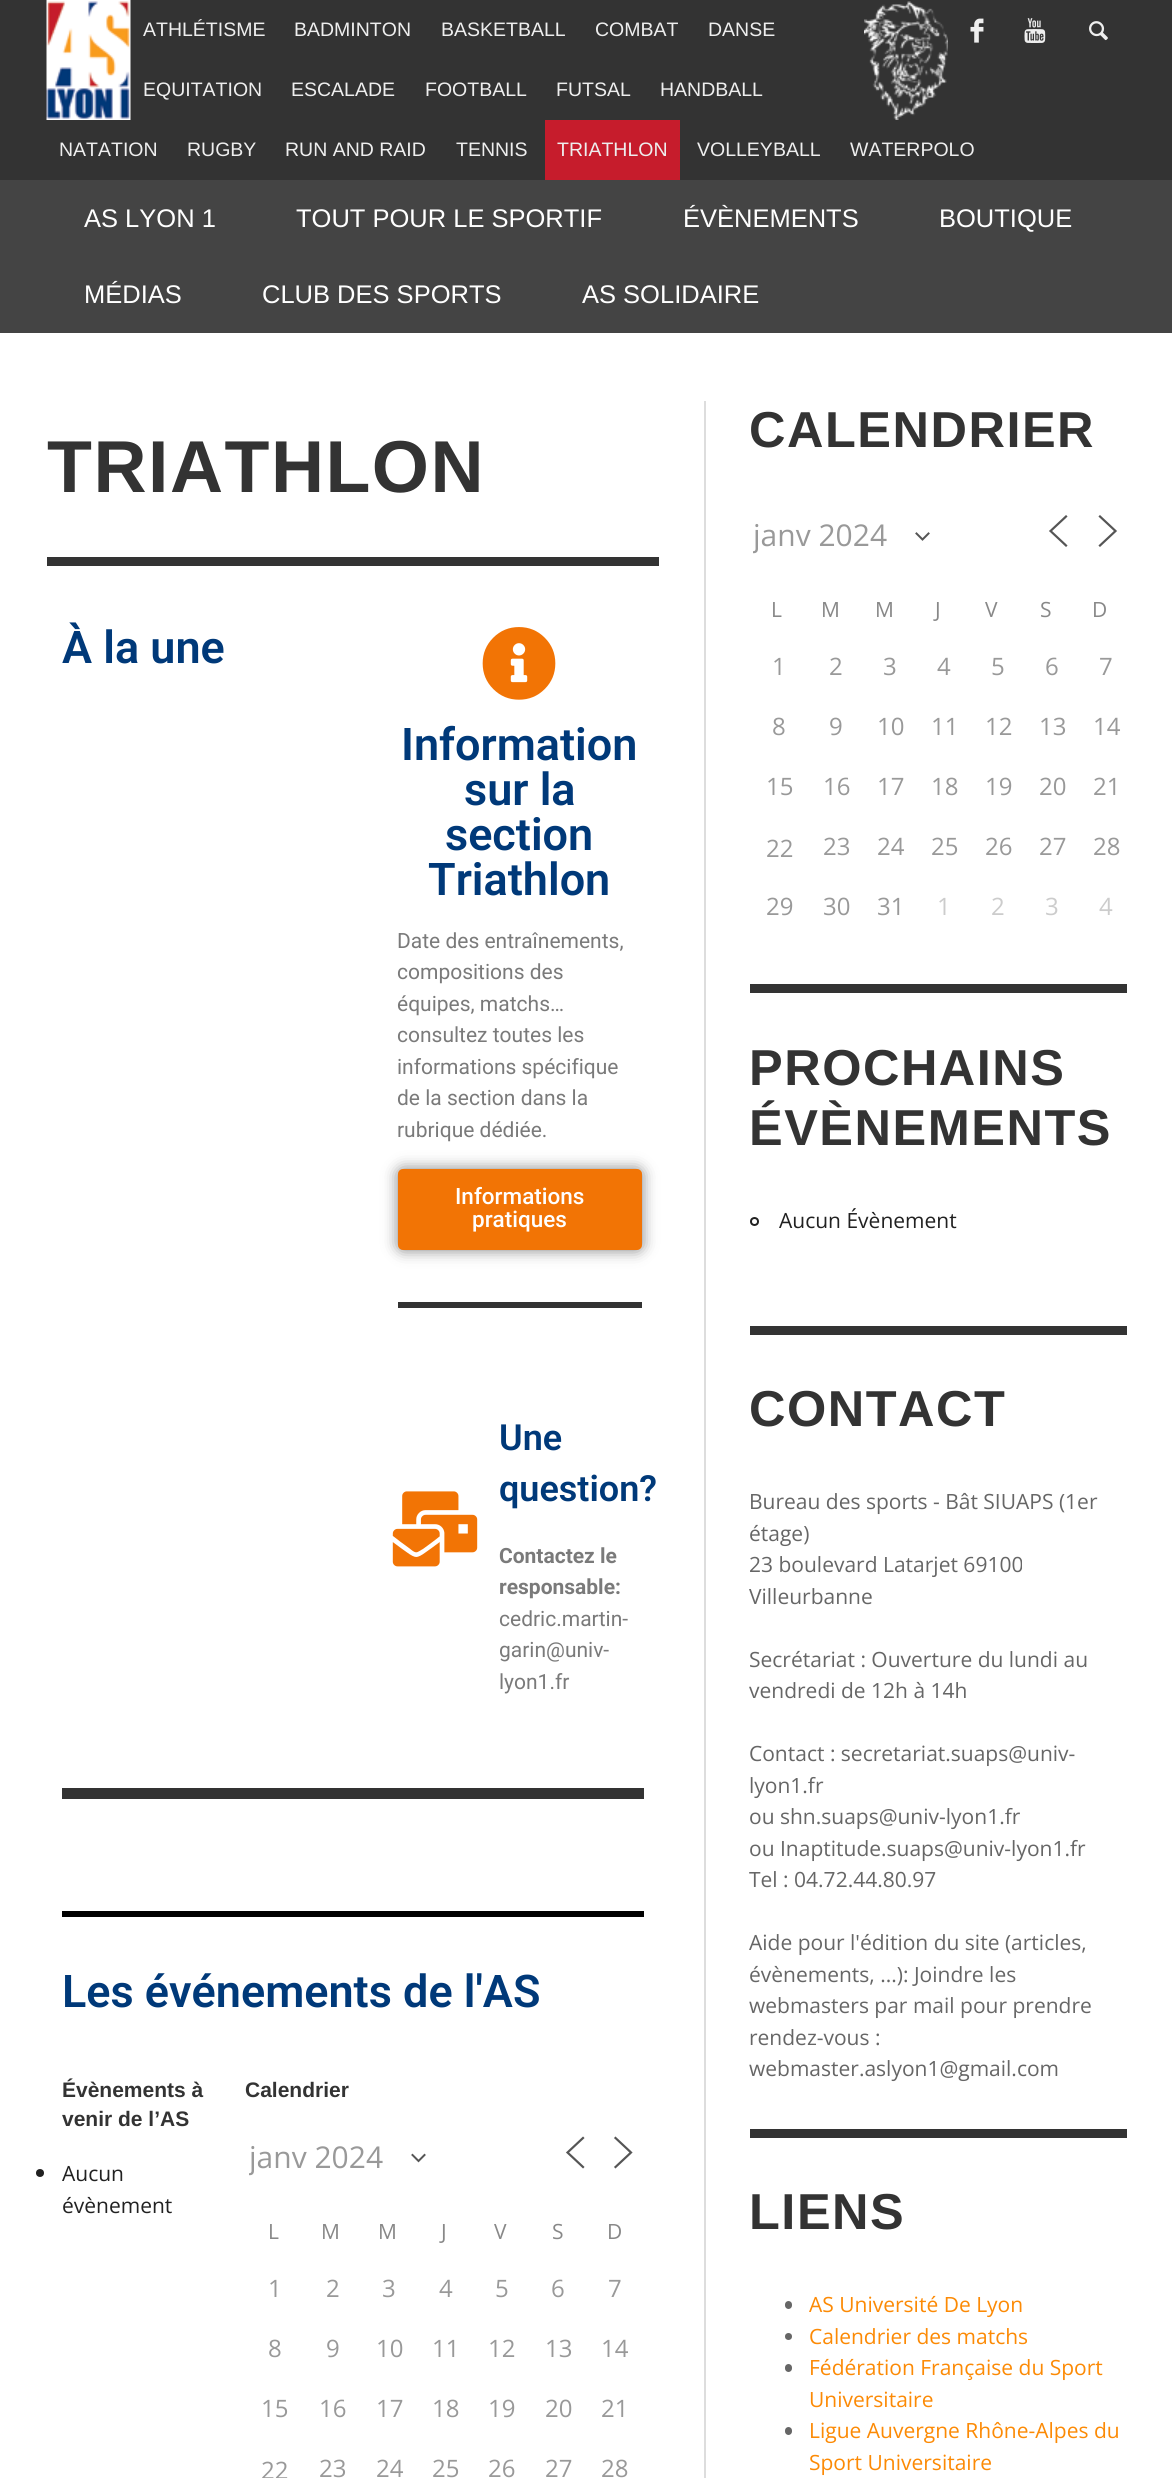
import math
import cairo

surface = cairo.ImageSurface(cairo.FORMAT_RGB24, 1172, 2478)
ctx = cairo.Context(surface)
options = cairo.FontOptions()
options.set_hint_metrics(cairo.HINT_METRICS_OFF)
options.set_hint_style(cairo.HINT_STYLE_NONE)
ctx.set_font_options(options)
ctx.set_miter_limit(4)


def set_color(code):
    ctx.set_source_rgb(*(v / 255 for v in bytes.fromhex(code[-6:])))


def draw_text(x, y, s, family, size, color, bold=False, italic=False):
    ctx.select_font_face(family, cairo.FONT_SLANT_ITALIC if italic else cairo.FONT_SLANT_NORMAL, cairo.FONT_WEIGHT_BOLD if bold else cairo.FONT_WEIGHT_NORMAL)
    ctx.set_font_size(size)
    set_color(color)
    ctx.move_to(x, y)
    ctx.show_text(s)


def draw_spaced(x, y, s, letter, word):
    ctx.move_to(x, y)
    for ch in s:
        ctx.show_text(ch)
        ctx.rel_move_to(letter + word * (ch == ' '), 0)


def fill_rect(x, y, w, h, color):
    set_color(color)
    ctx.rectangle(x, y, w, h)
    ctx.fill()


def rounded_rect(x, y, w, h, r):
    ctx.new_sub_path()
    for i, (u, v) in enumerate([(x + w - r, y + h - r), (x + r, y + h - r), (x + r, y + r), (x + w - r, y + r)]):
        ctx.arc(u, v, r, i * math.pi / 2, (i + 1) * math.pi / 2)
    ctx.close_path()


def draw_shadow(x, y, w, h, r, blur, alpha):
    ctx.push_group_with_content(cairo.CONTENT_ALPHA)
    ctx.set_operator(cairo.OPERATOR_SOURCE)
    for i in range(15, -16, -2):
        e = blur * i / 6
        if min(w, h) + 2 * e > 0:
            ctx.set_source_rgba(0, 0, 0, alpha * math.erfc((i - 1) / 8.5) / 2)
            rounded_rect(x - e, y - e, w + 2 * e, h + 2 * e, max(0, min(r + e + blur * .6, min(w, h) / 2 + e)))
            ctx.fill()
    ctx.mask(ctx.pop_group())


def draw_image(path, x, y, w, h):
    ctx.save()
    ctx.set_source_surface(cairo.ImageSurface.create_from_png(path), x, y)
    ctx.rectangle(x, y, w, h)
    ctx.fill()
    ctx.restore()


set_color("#ffffff")
ctx.paint()
fill_rect(0, 0, 1172, 180, "#333333")
draw_image("assets/img1.png", 46, 0, 85, 120)
draw_image("assets/img2.png", 864, 1, 84, 119)
draw_image("assets/img3.png", 970, 18, 14, 25)
draw_image("assets/img4.png", 1024, 18, 22, 25)
draw_image("assets/img5.png", 1089, 21, 19, 20)
draw_text(143, 36, "ATHLÉTISME", "Liberation Sans", 19.5, "#eeeeee")
draw_text(294, 36, "BADMINTON", "Liberation Sans", 19.5, "#eeeeee")
draw_text(441, 36, "BASKETBALL", "Liberation Sans", 19.5, "#eeeeee")
draw_text(595, 36, "COMBAT", "Liberation Sans", 19.5, "#eeeeee")
draw_text(708, 36, "DANSE", "Liberation Sans", 19.5, "#eeeeee")
draw_text(143, 96, "EQUITATION", "Liberation Sans", 19.5, "#eeeeee")
draw_text(291, 96, "ESCALADE", "Liberation Sans", 19.5, "#eeeeee")
draw_text(425, 96, "FOOTBALL", "Liberation Sans", 19.5, "#eeeeee")
draw_text(556, 96, "FUTSAL", "Liberation Sans", 19.5, "#eeeeee")
draw_text(660, 96, "HANDBALL", "Liberation Sans", 19.5, "#eeeeee")
draw_text(59, 156, "NATATION", "Liberation Sans", 19.5, "#eeeeee")
draw_text(187, 156, "RUGBY", "Liberation Sans", 19.5, "#eeeeee")
draw_text(285, 156, "RUN AND RAID", "Liberation Sans", 19.5, "#eeeeee")
draw_text(456, 156, "TENNIS", "Liberation Sans", 19.5, "#eeeeee")
fill_rect(545, 120, 135, 60, "#c61c2c")
draw_text(557, 156, "TRIATHLON", "Liberation Sans", 19.5, "#eeeeee")
draw_text(697, 156, "VOLLEYBALL", "Liberation Sans", 19.5, "#eeeeee")
draw_text(850, 156, "WATERPOLO", "Liberation Sans", 19.5, "#eeeeee")
fill_rect(0, 180, 1172, 153, "#444444")
draw_text(84, 227, "AS LYON 1", "Liberation Sans", 25.5, "#ffffff")
draw_text(296, 227, "TOUT POUR LE SPORTIF", "Liberation Sans", 25.5, "#ffffff")
draw_text(683, 227, "ÉVÈNEMENTS", "Liberation Sans", 25.5, "#ffffff")
draw_text(939, 227, "BOUTIQUE", "Liberation Sans", 25.5, "#ffffff")
draw_text(84, 303, "MÉDIAS", "Liberation Sans", 25.5, "#ffffff")
draw_text(262, 303, "CLUB DES SPORTS", "Liberation Sans", 25.5, "#ffffff")
draw_text(582, 303, "AS SOLIDAIRE", "Liberation Sans", 25.5, "#ffffff")
ctx.select_font_face("Liberation Sans", cairo.FONT_SLANT_NORMAL, cairo.FONT_WEIGHT_BOLD)
ctx.set_font_size(73.5)
set_color("#333333")
draw_spaced(47, 492, "TRIATHLON", 1.5, 0)
fill_rect(47, 557, 612, 9, "#333333")
draw_text(62, 663, "À la une", "Roboto SemiBold", 45, "#003979")
draw_image("assets/img6.png", 482, 627, 74, 73)
draw_text(401, 760, "Information", "Roboto SemiBold", 45, "#003979")
draw_text(464, 805, "sur la", "Roboto SemiBold", 45, "#003979")
draw_text(445, 850, "section", "Roboto SemiBold", 45, "#003979")
draw_text(428, 895, "Triathlon", "Roboto SemiBold", 45, "#003979")
draw_text(397, 948, "Date des entraînements,", "Roboto", 21, "#7a7a7a")
draw_text(397, 979, "compositions des", "Roboto", 21, "#7a7a7a")
draw_text(397, 1011, "équipes, matchs…", "Roboto", 21, "#7a7a7a")
draw_text(397, 1042, "consultez toutes les", "Roboto", 21, "#7a7a7a")
draw_text(397, 1074, "informations spécifique", "Roboto", 21, "#7a7a7a")
draw_text(397, 1105, "de la section dans la", "Roboto", 21, "#7a7a7a")
draw_text(397, 1137, "rubrique dédiée.", "Roboto", 21, "#7a7a7a")
set_color("#000000")
draw_shadow(398, 1169, 244, 81, 5, 7.5, 0.5)
set_color("#f27405")
rounded_rect(398, 1169, 244, 81, 5)
ctx.fill()
draw_text(455, 1204, "Informations", "Roboto Medium", 22.5, "#ffffff")
draw_text(472, 1227, "pratiques", "Roboto Medium", 22.5, "#ffffff")
fill_rect(398, 1302, 244, 6, "#333333")
draw_image("assets/img7.png", 392, 1491, 86, 76)
draw_text(499, 1450, "Une", "Roboto SemiBold", 36, "#003979")
draw_text(499, 1501, "question?", "Roboto SemiBold", 36, "#003979")
draw_text(499, 1563, "Contactez le", "Roboto", 21, "#7a7a7a", bold=True)
draw_text(499, 1594, "responsable:", "Roboto", 21, "#7a7a7a", bold=True)
draw_text(499, 1626, "cedric.martin-", "Roboto", 21, "#7a7a7a")
draw_text(499, 1657, "garin@univ-", "Roboto", 21, "#7a7a7a")
draw_text(499, 1689, "lyon1.fr", "Roboto", 21, "#7a7a7a")
fill_rect(62, 1788, 582, 11, "#333333")
fill_rect(62, 1911, 582, 6, "#000000")
draw_text(62, 2007, "Les événements de l'AS", "Roboto SemiBold", 45, "#003979")
draw_text(62, 2097, "Évènements à", "Liberation Sans", 21, "#333333", bold=True)
draw_text(62, 2126, "venir de l’AS", "Liberation Sans", 21, "#333333", bold=True)
set_color("#212121")
ctx.new_path()
ctx.arc(40, 2173, 4, 0, 2 * math.pi)
ctx.fill()
draw_text(62, 2181, "Aucun", "Open Sans", 21, "#212121")
draw_text(62, 2213, "évènement", "Open Sans", 21, "#212121")
draw_text(245, 2097, "Calendrier", "Liberation Sans", 21, "#333333", bold=True)
ctx.new_path()
ctx.move_to(412.5, 2155)
ctx.line_to(418.5, 2161)
ctx.line_to(424.5, 2155)
set_color("#555555")
ctx.set_line_cap(cairo.LINE_CAP_SQUARE)
ctx.stroke()
ctx.save()
rounded_rect(249, 2129, 192, 57, 6)
ctx.clip()
draw_text(249, 2168, "janv 2024", "Open Sans", 30, "#999999")
ctx.restore()
ctx.new_path()
ctx.move_to(583, 2167)
ctx.line_to(567.5, 2152.5)
ctx.line_to(583, 2138)
ctx.set_line_width(2.2)
ctx.stroke()
ctx.new_path()
ctx.move_to(615.5, 2167)
ctx.line_to(631, 2152.5)
ctx.line_to(615.5, 2138)
ctx.stroke()
draw_text(268, 2239, "L", "Open Sans", 21, "#888888")
draw_text(321, 2239, "M", "Open Sans", 21, "#888888")
draw_text(378, 2239, "M", "Open Sans", 21, "#888888")
draw_text(441, 2239, "J", "Open Sans", 21, "#888888")
draw_text(494, 2239, "V", "Open Sans", 21, "#888888")
draw_text(552, 2239, "S", "Open Sans", 21, "#888888")
draw_text(607, 2239, "D", "Open Sans", 21, "#888888")
draw_text(268, 2297, "1", "Open Sans", 24, "#999999")
draw_text(326, 2297, "2", "Open Sans", 24, "#999999")
draw_text(382, 2297, "3", "Open Sans", 24, "#999999")
draw_text(439, 2297, "4", "Open Sans", 24, "#999999")
draw_text(495, 2297, "5", "Open Sans", 24, "#999999")
draw_text(551, 2297, "6", "Open Sans", 24, "#999999")
draw_text(608, 2297, "7", "Open Sans", 24, "#999999")
draw_text(268, 2357, "8", "Open Sans", 24, "#999999")
draw_text(326, 2357, "9", "Open Sans", 24, "#999999")
draw_text(376, 2357, "10", "Open Sans", 24, "#999999")
draw_text(432, 2357, "11", "Open Sans", 24, "#999999")
draw_text(488, 2357, "12", "Open Sans", 24, "#999999")
draw_text(545, 2357, "13", "Open Sans", 24, "#999999")
draw_text(601, 2357, "14", "Open Sans", 24, "#999999")
draw_text(261, 2417, "15", "Open Sans", 24, "#999999")
draw_text(319, 2417, "16", "Open Sans", 24, "#999999")
draw_text(376, 2417, "17", "Open Sans", 24, "#999999")
draw_text(432, 2417, "18", "Open Sans", 24, "#999999")
draw_text(488, 2417, "19", "Open Sans", 24, "#999999")
draw_text(545, 2417, "20", "Open Sans", 24, "#999999")
draw_text(601, 2417, "21", "Open Sans", 24, "#999999")
draw_text(261, 2479, "22", "Open Sans", 24, "#999999")
draw_text(319, 2477, "23", "Open Sans", 24, "#999999")
draw_text(376, 2477, "24", "Open Sans", 24, "#999999")
draw_text(432, 2477, "25", "Open Sans", 24, "#999999")
draw_text(488, 2477, "26", "Open Sans", 24, "#999999")
draw_text(545, 2477, "27", "Open Sans", 24, "#999999")
draw_text(601, 2477, "28", "Open Sans", 24, "#999999")
fill_rect(704, 401, 2, 2077, "#dddddd")
ctx.select_font_face("Liberation Sans", cairo.FONT_SLANT_NORMAL, cairo.FONT_WEIGHT_BOLD)
ctx.set_font_size(50.5)
set_color("#333333")
draw_spaced(749, 447, "CALENDRIER", 1.5, 0)
ctx.new_path()
ctx.move_to(916.5, 533.5)
ctx.line_to(922.5, 539.5)
ctx.line_to(928.5, 533.5)
set_color("#555555")
ctx.set_line_width(2)
ctx.stroke()
ctx.save()
rounded_rect(753, 506, 192, 57, 6)
ctx.clip()
draw_text(753, 546, "janv 2024", "Open Sans", 30, "#999999")
ctx.restore()
ctx.new_path()
ctx.move_to(1066, 545.5)
ctx.line_to(1050.5, 531)
ctx.line_to(1066, 516.5)
ctx.set_line_width(2.2)
ctx.stroke()
ctx.new_path()
ctx.move_to(1100, 545.5)
ctx.line_to(1115.5, 531)
ctx.line_to(1100, 516.5)
ctx.stroke()
draw_text(771, 617, "L", "Open Sans", 21, "#888888")
draw_text(821, 617, "M", "Open Sans", 21, "#888888")
draw_text(875, 617, "M", "Open Sans", 21, "#888888")
draw_text(935, 617, "J", "Open Sans", 21, "#888888")
draw_text(985, 617, "V", "Open Sans", 21, "#888888")
draw_text(1040, 617, "S", "Open Sans", 21, "#888888")
draw_text(1092, 617, "D", "Open Sans", 21, "#888888")
draw_text(772, 675, "1", "Open Sans", 24, "#999999")
draw_text(829, 675, "2", "Open Sans", 24, "#999999")
draw_text(883, 675, "3", "Open Sans", 24, "#999999")
draw_text(937, 675, "4", "Open Sans", 24, "#999999")
draw_text(991, 675, "5", "Open Sans", 24, "#999999")
draw_text(1045, 675, "6", "Open Sans", 24, "#999999")
draw_text(1099, 675, "7", "Open Sans", 24, "#999999")
draw_text(772, 735, "8", "Open Sans", 24, "#999999")
draw_text(829, 735, "9", "Open Sans", 24, "#999999")
draw_text(877, 735, "10", "Open Sans", 24, "#999999")
draw_text(931, 735, "11", "Open Sans", 24, "#999999")
draw_text(985, 735, "12", "Open Sans", 24, "#999999")
draw_text(1039, 735, "13", "Open Sans", 24, "#999999")
draw_text(1093, 735, "14", "Open Sans", 24, "#999999")
draw_text(766, 795, "15", "Open Sans", 24, "#999999")
draw_text(823, 795, "16", "Open Sans", 24, "#999999")
draw_text(877, 795, "17", "Open Sans", 24, "#999999")
draw_text(931, 795, "18", "Open Sans", 24, "#999999")
draw_text(985, 795, "19", "Open Sans", 24, "#999999")
draw_text(1039, 795, "20", "Open Sans", 24, "#999999")
draw_text(1093, 795, "21", "Open Sans", 24, "#999999")
draw_text(766, 857, "22", "Open Sans", 24, "#999999")
draw_text(823, 855, "23", "Open Sans", 24, "#999999")
draw_text(877, 855, "24", "Open Sans", 24, "#999999")
draw_text(931, 855, "25", "Open Sans", 24, "#999999")
draw_text(985, 855, "26", "Open Sans", 24, "#999999")
draw_text(1039, 855, "27", "Open Sans", 24, "#999999")
draw_text(1093, 855, "28", "Open Sans", 24, "#999999")
draw_text(766, 915, "29", "Open Sans", 24, "#999999")
draw_text(823, 915, "30", "Open Sans", 24, "#999999")
draw_text(877, 915, "31", "Open Sans", 24, "#999999")
draw_text(937, 915, "1", "Open Sans", 24, "#cccccc")
draw_text(991, 915, "2", "Open Sans", 24, "#cccccc")
draw_text(1045, 915, "3", "Open Sans", 24, "#cccccc")
draw_text(1099, 915, "4", "Open Sans", 24, "#cccccc")
fill_rect(750, 984, 377, 9, "#333333")
ctx.select_font_face("Liberation Sans", cairo.FONT_SLANT_NORMAL, cairo.FONT_WEIGHT_BOLD)
ctx.set_font_size(50.5)
draw_spaced(749, 1085, "PROCHAINS", 1.5, 0)
draw_spaced(749, 1145, "ÉVÈNEMENTS", 1.5, 0)
ctx.new_path()
ctx.arc(754.5, 1221.5, 3.5, 0, 2 * math.pi)
set_color("#212121")
ctx.set_line_width(2)
ctx.set_line_cap(cairo.LINE_CAP_BUTT)
ctx.stroke()
draw_text(779, 1228, "Aucun Évènement", "Open Sans", 21, "#212121")
fill_rect(750, 1326, 377, 9, "#333333")
ctx.select_font_face("Liberation Sans", cairo.FONT_SLANT_NORMAL, cairo.FONT_WEIGHT_BOLD)
ctx.set_font_size(50.5)
draw_spaced(749, 1426, "CONTACT", 1.5, 0)
draw_text(749, 1509, "Bureau des sports - Bât SIUAPS (1er", "Open Sans", 21, "#666666")
draw_text(749, 1541, "étage)", "Open Sans", 21, "#666666")
draw_text(749, 1572, "23 boulevard Latarjet 69100", "Open Sans", 21, "#666666")
draw_text(749, 1604, "Villeurbanne", "Open Sans", 21, "#666666")
draw_text(749, 1667, "Secrétariat : Ouverture du lundi au", "Open Sans", 21, "#666666")
draw_text(749, 1698, "vendredi de 12h à 14h", "Open Sans", 21, "#666666")
draw_text(749, 1761, "Contact : secretariat.suaps@univ-", "Open Sans", 21, "#666666")
draw_text(749, 1793, "lyon1.fr", "Open Sans", 21, "#666666")
draw_text(749, 1824, "ou shn.suaps@univ-lyon1.fr", "Open Sans", 21, "#666666")
draw_text(749, 1856, "ou Inaptitude.suaps@univ-lyon1.fr", "Open Sans", 21, "#666666")
draw_text(749, 1887, "Tel : 04.72.44.80.97", "Open Sans", 21, "#666666")
draw_text(749, 1950, "Aide pour l'édition du site (articles,", "Open Sans", 21, "#666666")
draw_text(749, 1982, "évènements, ...): Joindre les", "Open Sans", 21, "#666666")
draw_text(749, 2013, "webmasters par mail pour prendre", "Open Sans", 21, "#666666")
draw_text(749, 2045, "rendez-vous :", "Open Sans", 21, "#666666")
draw_text(749, 2076, "webmaster.aslyon1@gmail.com", "Open Sans", 21, "#666666")
fill_rect(750, 2129, 377, 9, "#333333")
ctx.select_font_face("Liberation Sans", cairo.FONT_SLANT_NORMAL, cairo.FONT_WEIGHT_BOLD)
ctx.set_font_size(50.5)
draw_spaced(749, 2229, "LIENS", 1.5, 0)
set_color("#666666")
rounded_rect(785, 2301, 7, 8, 3.5)
ctx.fill()
draw_text(809, 2312, "AS Université De Lyon", "Open Sans", 21, "#fc8a05")
set_color("#666666")
ctx.new_path()
ctx.arc(788.5, 2336.5, 3.5, 0, 2 * math.pi)
ctx.fill()
draw_text(809, 2344, "Calendrier des matchs", "Open Sans", 21, "#fc8a05")
set_color("#666666")
rounded_rect(785, 2364, 7, 8, 3.5)
ctx.fill()
draw_text(809, 2375, "Fédération Française du Sport", "Open Sans", 21, "#fc8a05")
draw_text(809, 2407, "Universitaire", "Open Sans", 21, "#fc8a05")
set_color("#666666")
rounded_rect(785, 2427, 7, 8, 3.5)
ctx.fill()
draw_text(809, 2438, "Ligue Auvergne Rhône-Alpes du", "Open Sans", 21, "#fc8a05")
draw_text(809, 2470, "Sport Universitaire", "Open Sans", 21, "#fc8a05")
surface.write_to_png("output.png")
